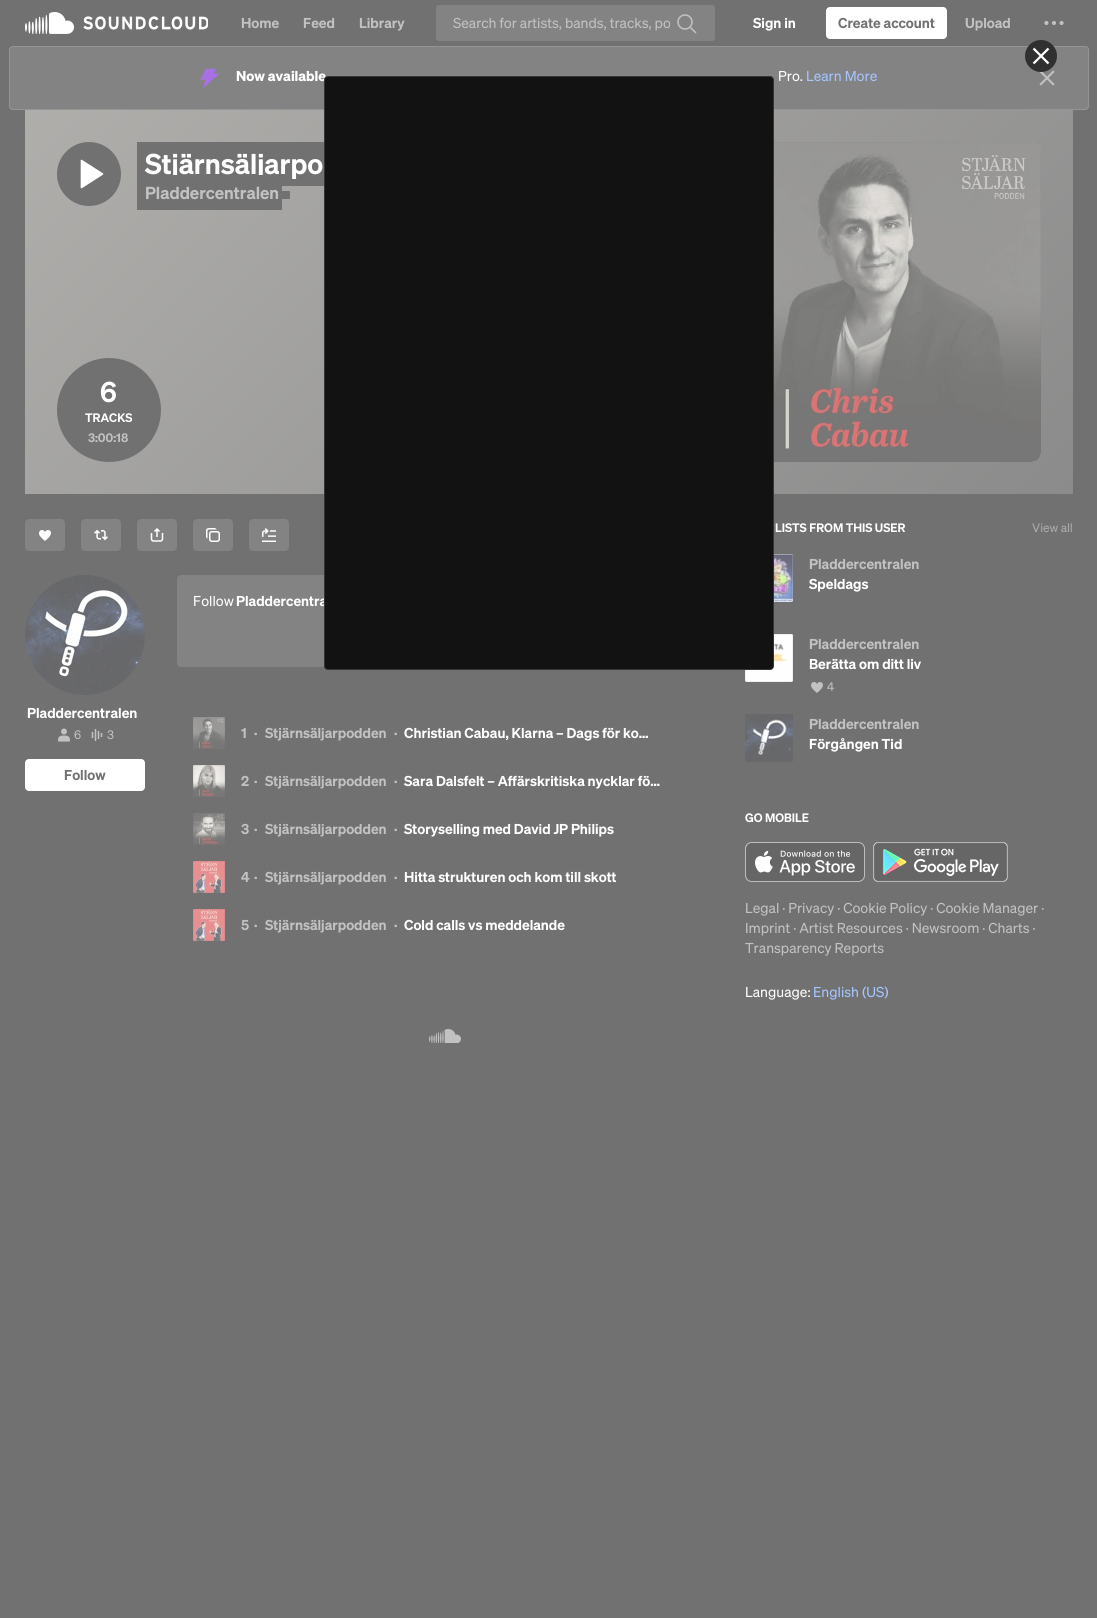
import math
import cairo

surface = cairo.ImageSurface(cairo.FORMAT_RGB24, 1097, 1618)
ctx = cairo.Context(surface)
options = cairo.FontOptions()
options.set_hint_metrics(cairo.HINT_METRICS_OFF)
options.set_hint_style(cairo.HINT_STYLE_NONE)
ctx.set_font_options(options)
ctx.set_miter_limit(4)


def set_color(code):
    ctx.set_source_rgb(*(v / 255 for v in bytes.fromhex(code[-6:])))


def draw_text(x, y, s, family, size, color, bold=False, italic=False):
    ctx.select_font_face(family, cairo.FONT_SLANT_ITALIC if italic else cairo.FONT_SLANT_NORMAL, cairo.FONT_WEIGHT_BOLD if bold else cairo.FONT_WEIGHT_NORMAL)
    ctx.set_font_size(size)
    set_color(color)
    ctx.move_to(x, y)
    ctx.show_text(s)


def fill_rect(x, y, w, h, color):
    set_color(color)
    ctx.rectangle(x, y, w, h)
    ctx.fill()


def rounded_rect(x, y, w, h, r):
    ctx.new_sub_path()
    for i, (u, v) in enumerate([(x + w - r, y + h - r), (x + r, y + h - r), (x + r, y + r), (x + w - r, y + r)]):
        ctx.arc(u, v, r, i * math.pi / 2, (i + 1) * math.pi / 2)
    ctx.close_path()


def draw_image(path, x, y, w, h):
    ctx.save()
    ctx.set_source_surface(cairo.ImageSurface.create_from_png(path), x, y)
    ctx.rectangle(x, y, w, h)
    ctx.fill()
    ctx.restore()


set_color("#717171")
ctx.paint()
draw_image("assets/img1.png", 25, 12, 183, 22)
draw_text(241, 28, "Home", "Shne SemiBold", 14, "#c2c2c2")
draw_text(303, 28, "Feed", "Shne SemiBold", 14, "#c2c2c2")
draw_text(359, 28, "Library", "Shne SemiBold", 14, "#c2c2c2")
set_color("#838383")
rounded_rect(436, 5, 279, 36, 3)
ctx.fill()
ctx.save()
ctx.rectangle(453, 12, 217, 22)
ctx.clip()
draw_text(453, 28, "Search for artists, bands, tracks, po", "Shne", 14, "#c2c2c2")
ctx.restore()
draw_image("assets/img2.png", 677, 14, 20, 20)
draw_text(753, 28, "Sign in", "Shne SemiBold", 14, "#ffffff")
rounded_rect(826, 7, 121, 32, 4)
ctx.fill()
draw_text(838, 28, "Create account", "Shne SemiBold", 14, "#717171")
draw_text(965, 28, "Upload", "Shne SemiBold", 14, "#c2c2c2")
draw_image("assets/img3.png", 1044, 21, 20, 4)
set_color("#838383")
rounded_rect(9, 46, 1080, 64, 4)
ctx.fill()
rounded_rect(9.5, 46.5, 1079, 63, 3.5)
ctx.set_source_rgba(1, 1, 1, 0.15)
ctx.set_line_width(1)
ctx.stroke()
draw_image("assets/img4.png", 200, 68, 20, 20)
draw_text(236, 81, "Now available", "Shne", 14, "#ffffff", bold=True)
draw_text(778, 81, "Pro.", "Shne", 14, "#ffffff")
draw_text(806, 81, "Learn More", "Shne", 14, "#a5c5ff")
draw_image("assets/img5.png", 1039, 70, 16, 16)
gradient = cairo.LinearGradient(191, -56, 907, 660)
gradient.add_color_stop_rgba(0, 0.686, 0.682, 0.671, 1)
gradient.add_color_stop_rgba(1, 0.545, 0.545, 0.545, 1)
ctx.set_source(gradient)
ctx.rectangle(25, 110, 1048, 384)
ctx.fill()
set_color("#717171")
ctx.arc(89, 174, 32, 0, 2 * math.pi)
ctx.fill()
draw_image("assets/img6.png", 80, 159, 24, 30)
fill_rect(137, 142, 187, 44, "#717171")
draw_text(145, 174, "Stjärnsäljarpo", "Shne SemiBold", 28, "#ffffff")
fill_rect(137, 175, 145, 35, "#717171")
draw_text(145, 199, "Pladdercentralen", "Shne SemiBold", 17, "#c2c2c2")
fill_rect(282, 191, 8, 8, "#717171")
gradient = cairo.LinearGradient(721, 142, 1041, 462)
gradient.add_color_stop_rgba(0, 0.733, 0.71, 0.714, 1)
gradient.add_color_stop_rgba(1, 0.663, 0.745, 0.769, 1)
ctx.set_source(gradient)
rounded_rect(721, 142, 320, 320, 10)
ctx.fill()
draw_image("assets/img7.png", 774, 142, 267, 320)
rounded_rect(721.5, 142.5, 319, 319, 9.5)
ctx.set_source_rgba(0.443, 0.443, 0.443, 0.1)
ctx.stroke()
set_color("#717171")
ctx.arc(109, 410, 52, 0, 2 * math.pi)
ctx.fill()
draw_text(100, 402, "6", "Shne SemiBold", 28, "#ffffff")
draw_text(85, 422, "TRACKS", "Shne SemiBold", 12, "#ffffff")
draw_text(88, 442, "3:00:18", "Shne SemiBold", 12, "#c2c2c2")
set_color("#838383")
rounded_rect(25, 519, 40, 32, 4)
ctx.fill()
draw_image("assets/img8.png", 39, 530, 12, 11)
rounded_rect(81, 519, 40, 32, 4)
ctx.fill()
draw_image("assets/img9.png", 94, 529, 14, 12)
rounded_rect(137, 519, 40, 32, 4)
ctx.fill()
draw_image("assets/img10.png", 150, 528, 14, 14)
rounded_rect(193, 519, 40, 32, 4)
ctx.fill()
draw_image("assets/img11.png", 206, 528, 14, 14)
rounded_rect(249, 519, 40, 32, 4)
ctx.fill()
draw_image("assets/img12.png", 262, 528, 14, 14)
draw_image("assets/img13.png", 25, 575, 120, 120)
ctx.arc(85, 635, 59.5, 0, 2 * math.pi)
ctx.set_source_rgba(0.443, 0.443, 0.443, 0.1)
ctx.stroke()
draw_text(27, 718, "Pladdercentralen", "Shne SemiBold", 14, "#ffffff")
draw_image("assets/img14.png", 58, 728, 12, 14)
draw_text(74, 739, "6", "Shne", 12, "#c2c2c2")
draw_image("assets/img15.png", 91, 729, 12, 12)
draw_text(107, 739, "3", "Shne", 12, "#c2c2c2")
set_color("#ffffff")
rounded_rect(25, 759, 120, 32, 4)
ctx.fill()
draw_text(64, 780, "Follow", "Shne SemiBold", 14, "#717171")
set_color("#838383")
rounded_rect(177, 575, 536, 92, 4)
ctx.fill()
draw_text(193, 606, "Follow", "Shne", 14, "#ffffff")
draw_text(236, 606, "Pladdercentra", "Shne SemiBold", 14, "#ffffff")
draw_image("assets/img16.png", 193, 717, 32, 32)
ctx.rectangle(193.5, 717.5, 31, 31)
ctx.set_source_rgba(0.443, 0.443, 0.443, 0.1)
ctx.stroke()
draw_text(241, 738, "1", "Shne SemiBold", 14, "#c2c2c2")
draw_text(254, 738, "·", "Shne SemiBold", 14, "#c2c2c2")
draw_text(265, 738, "Stjärnsäljarpodden", "Shne SemiBold", 14, "#c2c2c2")
draw_text(394, 738, "·", "Shne SemiBold", 14, "#c2c2c2")
draw_text(404, 738, "Christian Cabau, Klarna – Dags för ko…", "Shne SemiBold", 14, "#ffffff")
draw_image("assets/img17.png", 193, 765, 32, 32)
ctx.rectangle(193.5, 765.5, 31, 31)
ctx.set_source_rgba(0.443, 0.443, 0.443, 0.1)
ctx.stroke()
draw_text(241, 786, "2", "Shne SemiBold", 14, "#c2c2c2")
draw_text(254, 786, "·", "Shne SemiBold", 14, "#c2c2c2")
draw_text(265, 786, "Stjärnsäljarpodden", "Shne SemiBold", 14, "#c2c2c2")
draw_text(394, 786, "·", "Shne SemiBold", 14, "#c2c2c2")
draw_text(404, 786, "Sara Dalsfelt – Affärskritiska nycklar fö…", "Shne SemiBold", 14, "#ffffff")
draw_image("assets/img18.png", 193, 813, 32, 32)
ctx.rectangle(193.5, 813.5, 31, 31)
ctx.set_source_rgba(0.443, 0.443, 0.443, 0.1)
ctx.stroke()
draw_text(241, 834, "3", "Shne SemiBold", 14, "#c2c2c2")
draw_text(254, 834, "·", "Shne SemiBold", 14, "#c2c2c2")
draw_text(265, 834, "Stjärnsäljarpodden", "Shne SemiBold", 14, "#c2c2c2")
draw_text(394, 834, "·", "Shne SemiBold", 14, "#c2c2c2")
draw_text(404, 834, "Storyselling med David JP Philips", "Shne SemiBold", 14, "#ffffff")
draw_image("assets/img19.png", 193, 861, 32, 32)
ctx.rectangle(193.5, 861.5, 31, 31)
ctx.set_source_rgba(0.443, 0.443, 0.443, 0.1)
ctx.stroke()
draw_text(241, 882, "4", "Shne SemiBold", 14, "#c2c2c2")
draw_text(254, 882, "·", "Shne SemiBold", 14, "#c2c2c2")
draw_text(265, 882, "Stjärnsäljarpodden", "Shne SemiBold", 14, "#c2c2c2")
draw_text(394, 882, "·", "Shne SemiBold", 14, "#c2c2c2")
draw_text(404, 882, "Hitta strukturen och kom till skott", "Shne SemiBold", 14, "#ffffff")
draw_image("assets/img20.png", 193, 909, 32, 32)
ctx.rectangle(193.5, 909.5, 31, 31)
ctx.set_source_rgba(0.443, 0.443, 0.443, 0.1)
ctx.stroke()
draw_text(241, 930, "5", "Shne SemiBold", 14, "#c2c2c2")
draw_text(254, 930, "·", "Shne SemiBold", 14, "#c2c2c2")
draw_text(265, 930, "Stjärnsäljarpodden", "Shne SemiBold", 14, "#c2c2c2")
draw_text(394, 930, "·", "Shne SemiBold", 14, "#c2c2c2")
draw_text(404, 930, "Cold calls vs meddelande", "Shne SemiBold", 14, "#ffffff")
draw_image("assets/img21.png", 429, 1029, 32, 14)
draw_text(775, 532, "LISTS FROM THIS USER", "Shne SemiBold", 12, "#ffffff")
draw_text(1032, 532, "View all", "Shne", 12, "#acacac")
draw_image("assets/img22.png", 774, 554, 19, 48)
ctx.rectangle(745.5, 554.5, 47, 47)
ctx.set_source_rgba(0.443, 0.443, 0.443, 0.1)
ctx.stroke()
draw_text(809, 569, "Pladdercentralen", "Shne SemiBold", 14, "#c2c2c2")
draw_text(809, 589, "Speldags", "Shne SemiBold", 14, "#ffffff")
draw_image("assets/img23.png", 745, 634, 49, 48)
ctx.rectangle(745.5, 634.5, 47, 47)
ctx.set_source_rgba(0.443, 0.443, 0.443, 0.1)
ctx.stroke()
draw_text(809, 649, "Pladdercentralen", "Shne SemiBold", 14, "#c2c2c2")
draw_text(809, 669, "Berätta om ditt liv", "Shne SemiBold", 14, "#ffffff")
draw_image("assets/img24.png", 811, 682, 12, 11)
draw_text(827, 691, "4", "Shne", 12, "#c2c2c2")
draw_image("assets/img25.png", 745, 714, 48, 48)
draw_text(809, 729, "Pladdercentralen", "Shne SemiBold", 14, "#c2c2c2")
draw_text(809, 749, "Förgången Tid", "Shne SemiBold", 14, "#ffffff")
draw_text(745, 822, "GO MOBILE", "Shne SemiBold", 12, "#ffffff")
draw_image("assets/img26.png", 745, 842, 120, 40)
draw_image("assets/img27.png", 873, 842, 135, 40)
draw_text(745, 913, "Legal · Privacy · Cookie Policy · Cookie Manager ·", "Shne", 14, "#c2c2c2")
draw_text(745, 933, "Imprint · Artist Resources · Newsroom · Charts ·", "Shne", 14, "#c2c2c2")
draw_text(745, 953, "Transparency Reports", "Shne", 14, "#c2c2c2")
draw_text(745, 997, "Language:", "Shne", 14, "#ffffff")
draw_text(813, 997, "English (US)", "Shne", 14, "#a5c5ff")
set_color("#303030")
ctx.new_path()
ctx.arc(1041, 56, 16, 0, 2 * math.pi)
ctx.fill()
draw_image("assets/img28.png", 1032, 47, 18, 18)
set_color("#121212")
rounded_rect(324, 76, 450, 594, 4)
ctx.fill()
rounded_rect(324.5, 76.5, 449, 593, 3.5)
ctx.set_source_rgba(1, 1, 1, 0.15)
ctx.stroke()
surface.write_to_png("output.png")
